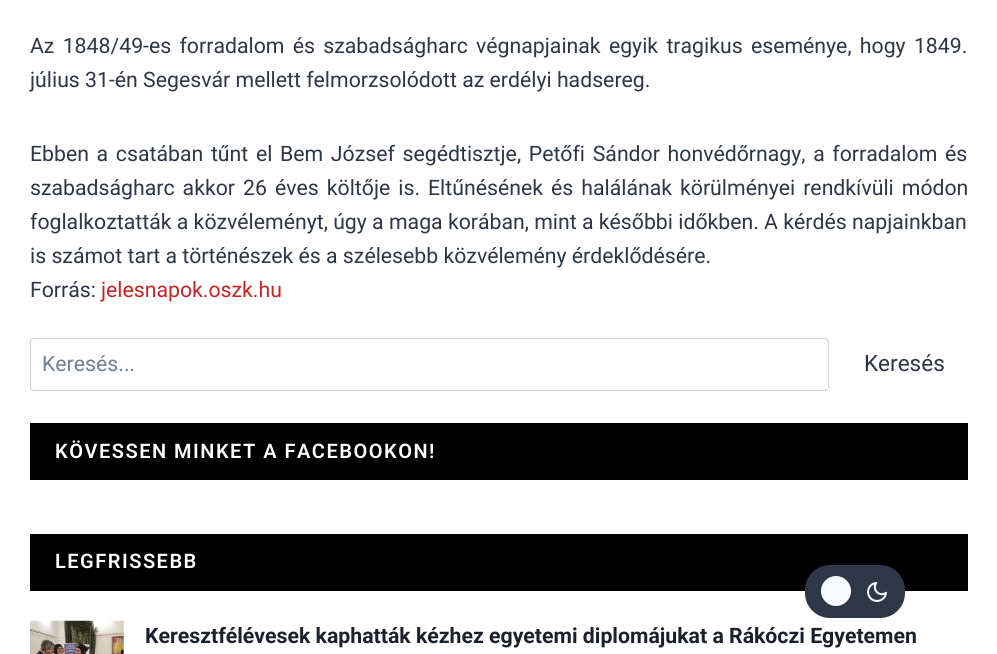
import math
import cairo

surface = cairo.ImageSurface(cairo.FORMAT_RGB24, 997, 654)
ctx = cairo.Context(surface)
options = cairo.FontOptions()
options.set_hint_metrics(cairo.HINT_METRICS_OFF)
options.set_hint_style(cairo.HINT_STYLE_NONE)
ctx.set_font_options(options)
ctx.set_miter_limit(4)


def set_color(code):
    ctx.set_source_rgb(*(v / 255 for v in bytes.fromhex(code[-6:])))


def draw_text(x, y, s, family, size, color, bold=False, italic=False):
    ctx.select_font_face(family, cairo.FONT_SLANT_ITALIC if italic else cairo.FONT_SLANT_NORMAL, cairo.FONT_WEIGHT_BOLD if bold else cairo.FONT_WEIGHT_NORMAL)
    ctx.set_font_size(size)
    set_color(color)
    ctx.move_to(x, y)
    ctx.show_text(s)


def draw_spaced(x, y, s, letter, word):
    ctx.move_to(x, y)
    for ch in s:
        ctx.show_text(ch)
        ctx.rel_move_to(letter + word * (ch == ' '), 0)


def fill_rect(x, y, w, h, color):
    set_color(color)
    ctx.rectangle(x, y, w, h)
    ctx.fill()


def rounded_rect(x, y, w, h, r):
    ctx.new_sub_path()
    for i, (u, v) in enumerate([(x + w - r, y + h - r), (x + r, y + h - r), (x + r, y + r), (x + w - r, y + r)]):
        ctx.arc(u, v, r, i * math.pi / 2, (i + 1) * math.pi / 2)
    ctx.close_path()


def draw_image(path, x, y, w, h):
    ctx.save()
    ctx.set_source_surface(cairo.ImageSurface.create_from_png(path), x, y)
    ctx.rectangle(x, y, w, h)
    ctx.fill()
    ctx.restore()


set_color("#ffffff")
ctx.paint()
ctx.select_font_face("Roboto")
ctx.set_font_size(21.25)
set_color("#2d3748")
draw_spaced(30, 53, "Az 1848/49-es forradalom és szabadságharc végnapjainak egyik tragikus eseménye, hogy 1849.", 0, 3)
draw_text(30, 87, "július 31-én Segesvár mellett felmorzsolódott az erdélyi hadsereg.", "Roboto", 21.25, "#2d3748")
draw_spaced(30, 161, "Ebben a csatában tűnt el Bem József segédtisztje, Petőfi Sándor honvédőrnagy, a forradalom és", 0, 2.4)
draw_spaced(30, 195, "szabadságharc akkor 26 éves költője is. Eltűnésének és halálának körülményei rendkívüli módon", 0, 2.75)
draw_text(30, 229, "foglalkoztatták a közvéleményt, úgy a maga korában, mint a későbbi időkben. A kérdés napjainkban", "Roboto", 21.25, "#2d3748")
draw_text(30, 263, "is számot tart a történészek és a szélesebb közvélemény érdeklődésére.", "Roboto", 21.25, "#2d3748")
draw_text(30, 297, "Forrás:", "Roboto", 21.25, "#2d3748")
draw_text(101, 297, "jelesnapok.oszk.hu", "Roboto", 21.25, "#cd2122")
rounded_rect(30.5, 338.5, 798, 52, 3.5)
set_color("#cbd5e0")
ctx.set_line_width(1)
ctx.stroke()
draw_text(42, 371, "Keresés...", "Roboto", 21.25, "#718096")
draw_text(864, 371, "Keresés", "Roboto", 22.5, "#2d3748")
fill_rect(30, 423, 938, 57, "#000000")
ctx.select_font_face("Roboto SemiBold")
ctx.set_font_size(20)
set_color("#ffffff")
draw_spaced(55, 458, "KÖVESSEN MINKET A FACEBOOKON!", 1.5, 0)
fill_rect(30, 534, 938, 57, "#000000")
set_color("#ffffff")
draw_spaced(55, 568, "LEGFRISSEBB", 1.5, 0)
draw_image("assets/img1.png", 30, 620, 94, 34)
draw_text(145, 643, "Keresztfélévesek kaphatták kézhez egyetemi diplomájukat a Rákóczi Egyetemen", "Roboto", 21.25, "#1a202c", bold=True)
set_color("#2d3748")
rounded_rect(805, 565, 100, 53, 25)
ctx.fill()
set_color("#f7fafc")
ctx.arc(836, 591, 15, 0, 2 * math.pi)
ctx.fill()
draw_image("assets/img2.png", 867, 582, 20, 20)
surface.write_to_png("output.png")
